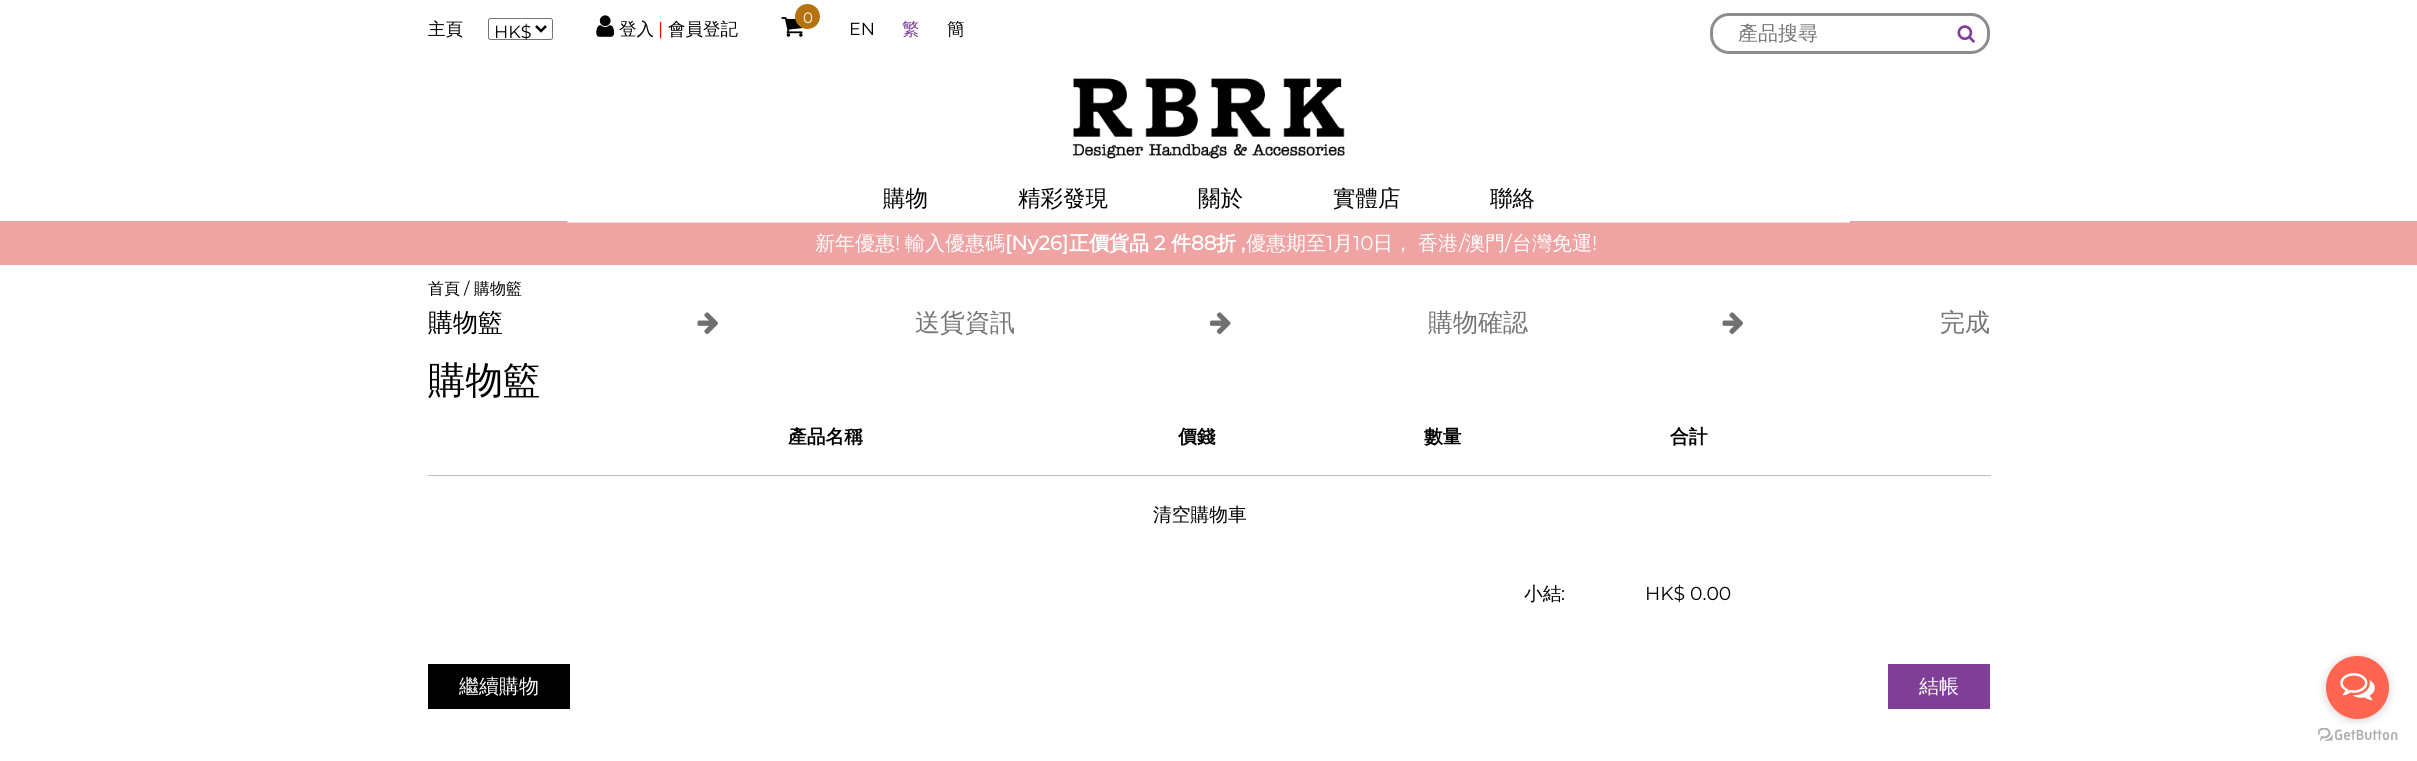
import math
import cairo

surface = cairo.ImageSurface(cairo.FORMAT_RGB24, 2417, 761)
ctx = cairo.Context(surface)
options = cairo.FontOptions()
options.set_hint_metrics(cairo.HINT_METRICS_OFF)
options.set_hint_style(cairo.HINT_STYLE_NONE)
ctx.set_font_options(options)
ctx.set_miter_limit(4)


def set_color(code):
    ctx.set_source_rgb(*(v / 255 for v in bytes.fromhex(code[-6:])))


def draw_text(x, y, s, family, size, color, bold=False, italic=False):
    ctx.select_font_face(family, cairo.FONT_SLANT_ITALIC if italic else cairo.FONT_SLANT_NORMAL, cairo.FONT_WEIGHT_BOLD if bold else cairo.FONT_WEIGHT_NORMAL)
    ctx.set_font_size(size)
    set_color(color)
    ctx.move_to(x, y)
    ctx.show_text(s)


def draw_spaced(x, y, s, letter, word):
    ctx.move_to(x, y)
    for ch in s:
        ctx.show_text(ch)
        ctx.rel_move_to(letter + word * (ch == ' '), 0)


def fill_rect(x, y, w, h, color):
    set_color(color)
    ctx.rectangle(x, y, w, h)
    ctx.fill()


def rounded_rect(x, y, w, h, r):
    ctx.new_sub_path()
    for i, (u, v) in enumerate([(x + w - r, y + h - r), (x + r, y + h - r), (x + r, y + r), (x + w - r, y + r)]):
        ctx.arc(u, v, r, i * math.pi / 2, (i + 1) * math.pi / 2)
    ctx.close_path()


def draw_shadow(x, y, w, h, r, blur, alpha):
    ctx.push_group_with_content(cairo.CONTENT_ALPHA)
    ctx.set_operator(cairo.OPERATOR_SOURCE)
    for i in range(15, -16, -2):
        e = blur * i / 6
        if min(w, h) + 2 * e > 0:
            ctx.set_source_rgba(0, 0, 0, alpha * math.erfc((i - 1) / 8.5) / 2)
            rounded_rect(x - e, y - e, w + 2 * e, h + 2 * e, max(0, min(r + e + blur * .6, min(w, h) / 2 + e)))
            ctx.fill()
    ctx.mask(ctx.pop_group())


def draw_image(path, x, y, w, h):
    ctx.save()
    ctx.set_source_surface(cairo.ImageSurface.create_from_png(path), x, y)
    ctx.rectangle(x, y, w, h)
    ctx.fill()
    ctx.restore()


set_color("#ffffff")
ctx.paint()
draw_image("assets/img1.png", 781, 17, 22, 20)
set_color("#b47210")
ctx.arc(807.5, 16.5, 12.5, 0, 2 * math.pi)
ctx.fill()
draw_text(803, 23, "0", "Montserrat Thin", 15, "#ffffff")
draw_text(428, 35, "主頁", "WenQuanYi Zen Hei Medium", 17.5, "#000000")
rounded_rect(488.5, 18.5, 64, 21, 2)
set_color("#767676")
ctx.set_line_width(1)
ctx.stroke()
ctx.new_path()
ctx.move_to(536, 26)
ctx.line_to(541, 31)
ctx.line_to(546, 26)
set_color("#000000")
ctx.set_line_width(2.5)
ctx.stroke()
draw_text(494, 38, "HK$", "Montserrat Thin", 17.5, "#000000")
draw_image("assets/img2.png", 596, 15, 19, 22)
draw_text(619, 35, "登入", "WenQuanYi Zen Hei Medium", 17.5, "#000000")
draw_text(658, 35, "|", "Montserrat Thin", 17.5, "#ff0000")
draw_text(668, 35, "會員登記", "WenQuanYi Zen Hei Medium", 17.5, "#000000")
draw_text(849, 35, "EN", "Montserrat Thin", 17.5, "#000000")
draw_text(902, 35, "繁", "WenQuanYi Zen Hei Medium", 17.5, "#7f3f97")
draw_text(947, 35, "簡", "WenQuanYi Zen Hei Medium", 17.5, "#000000")
rounded_rect(1711.5, 14.5, 277, 38, 17.5)
set_color("#8d8d8d")
ctx.set_line_width(3)
ctx.stroke()
draw_text(1738, 40, "產品搜尋", "WenQuanYi Zen Hei Medium", 20, "#757575")
draw_image("assets/img3.png", 1957, 25, 18, 18)
fill_rect(0, 221, 2417, 44, "#efa3a3")
draw_image("assets/img4.png", 567, 78, 1283, 145)
draw_text(883, 206, "購物", "WenQuanYi Zen Hei Medium", 22.5, "#000000")
draw_text(1018, 206, "精彩發現", "WenQuanYi Zen Hei Medium", 22.5, "#000000")
draw_text(1198, 206, "關於", "WenQuanYi Zen Hei Medium", 22.5, "#000000")
draw_text(1333, 206, "實體店", "WenQuanYi Zen Hei Medium", 22.5, "#000000")
draw_text(1490, 206, "聯絡", "WenQuanYi Zen Hei Medium", 22.5, "#000000")
draw_text(815, 250, "新年優惠", "WenQuanYi Zen Hei Medium", 20, "#ffffff")
draw_text(895, 250, "!", "Montserrat Thin", 20, "#ffffff")
draw_text(905, 250, "輸入優惠碼", "WenQuanYi Zen Hei Medium", 20, "#ffffff")
draw_text(1005, 250, "[Ny26]", "Montserrat", 20, "#ffffff", bold=True)
draw_text(1069, 250, "正價貨品", "WenQuanYi Zen Hei", 20, "#ffffff", bold=True)
draw_text(1154, 250, "2", "Montserrat", 20, "#ffffff", bold=True)
draw_text(1171, 250, "件", "WenQuanYi Zen Hei", 20, "#ffffff", bold=True)
draw_text(1191, 250, "88", "Montserrat", 20, "#ffffff", bold=True)
draw_text(1216, 250, "折", "WenQuanYi Zen Hei", 20, "#ffffff", bold=True)
draw_text(1241, 250, ",", "Montserrat", 20, "#ffffff", bold=True)
draw_text(1246, 250, "優惠期至", "WenQuanYi Zen Hei Medium", 20, "#ffffff")
draw_text(1326, 250, "1", "Montserrat Thin", 20, "#ffffff")
draw_text(1333, 250, "月", "WenQuanYi Zen Hei Medium", 20, "#ffffff")
draw_text(1353, 250, "10", "Montserrat Thin", 20, "#ffffff")
ctx.select_font_face("WenQuanYi Zen Hei Medium")
draw_spaced(1373, 250, "日， 香港", 0, -1)
draw_text(1459, 250, "/", "Montserrat Thin", 20, "#ffffff")
draw_text(1465, 250, "澳門", "WenQuanYi Zen Hei Medium", 20, "#ffffff")
draw_text(1505, 250, "/", "Montserrat Thin", 20, "#ffffff")
draw_text(1512, 250, "台灣免運", "WenQuanYi Zen Hei Medium", 20, "#ffffff")
draw_text(1592, 250, "!", "Montserrat Thin", 20, "#ffffff")
draw_text(428, 294, "首頁", "WenQuanYi Zen Hei Medium", 16, "#000000")
draw_text(464, 294, "/", "Montserrat Thin", 16, "#000000")
draw_text(474, 294, "購物籃", "WenQuanYi Zen Hei Medium", 16, "#000000")
draw_text(428, 331, "購物籃", "WenQuanYi Zen Hei Medium", 25, "#000000")
draw_image("assets/img5.png", 697, 312, 21, 22)
draw_text(915, 331, "送貨資訊", "WenQuanYi Zen Hei Medium", 25, "#757575")
draw_image("assets/img6.png", 1210, 312, 21, 23)
draw_text(1428, 331, "購物確認", "WenQuanYi Zen Hei Medium", 25, "#757575")
draw_image("assets/img5.png", 1722, 312, 21, 22)
draw_text(1940, 331, "完成", "WenQuanYi Zen Hei Medium", 25, "#757575")
draw_text(428, 393, "購物籃", "WenQuanYi Zen Hei Medium", 37.5, "#000000")
draw_text(788, 443, "產品名稱", "WenQuanYi Zen Hei", 18.75, "#000000", bold=True)
draw_text(1178, 443, "價錢", "WenQuanYi Zen Hei", 18.75, "#000000", bold=True)
draw_text(1424, 443, "數量", "WenQuanYi Zen Hei", 18.75, "#000000", bold=True)
draw_text(1670, 443, "合計", "WenQuanYi Zen Hei", 18.75, "#000000", bold=True)
fill_rect(428, 475, 1563, 1, "#bebebe")
draw_text(1153, 521, "清空購物車", "WenQuanYi Zen Hei Medium", 18.75, "#000000")
draw_text(1524, 600, "小結", "WenQuanYi Zen Hei Medium", 18.75, "#000000")
draw_text(1561, 600, ":", "Montserrat Thin", 18.75, "#000000")
draw_text(1645, 600, "HK$ 0.00", "Montserrat Thin", 18.75, "#000000")
fill_rect(428, 664, 142, 45, "#000000")
draw_text(459, 693, "繼續購物", "WenQuanYi Zen Hei Medium", 20, "#ffffff")
fill_rect(1888, 664, 102, 45, "#7f3f97")
draw_text(1919, 693, "結帳", "WenQuanYi Zen Hei Medium", 20, "#ffffff")
draw_image("assets/img8.png", 2318, 728, 80, 13)
set_color("#888888")
draw_shadow(2326, 658, 63, 62, 31, 4.5, 0.4)
set_color("#ff6550")
ctx.arc(2357.5, 687.5, 31.5, 0, 2 * math.pi)
ctx.fill()
draw_image("assets/img7.png", 2340, 673, 35, 28)
surface.write_to_png("output.png")
